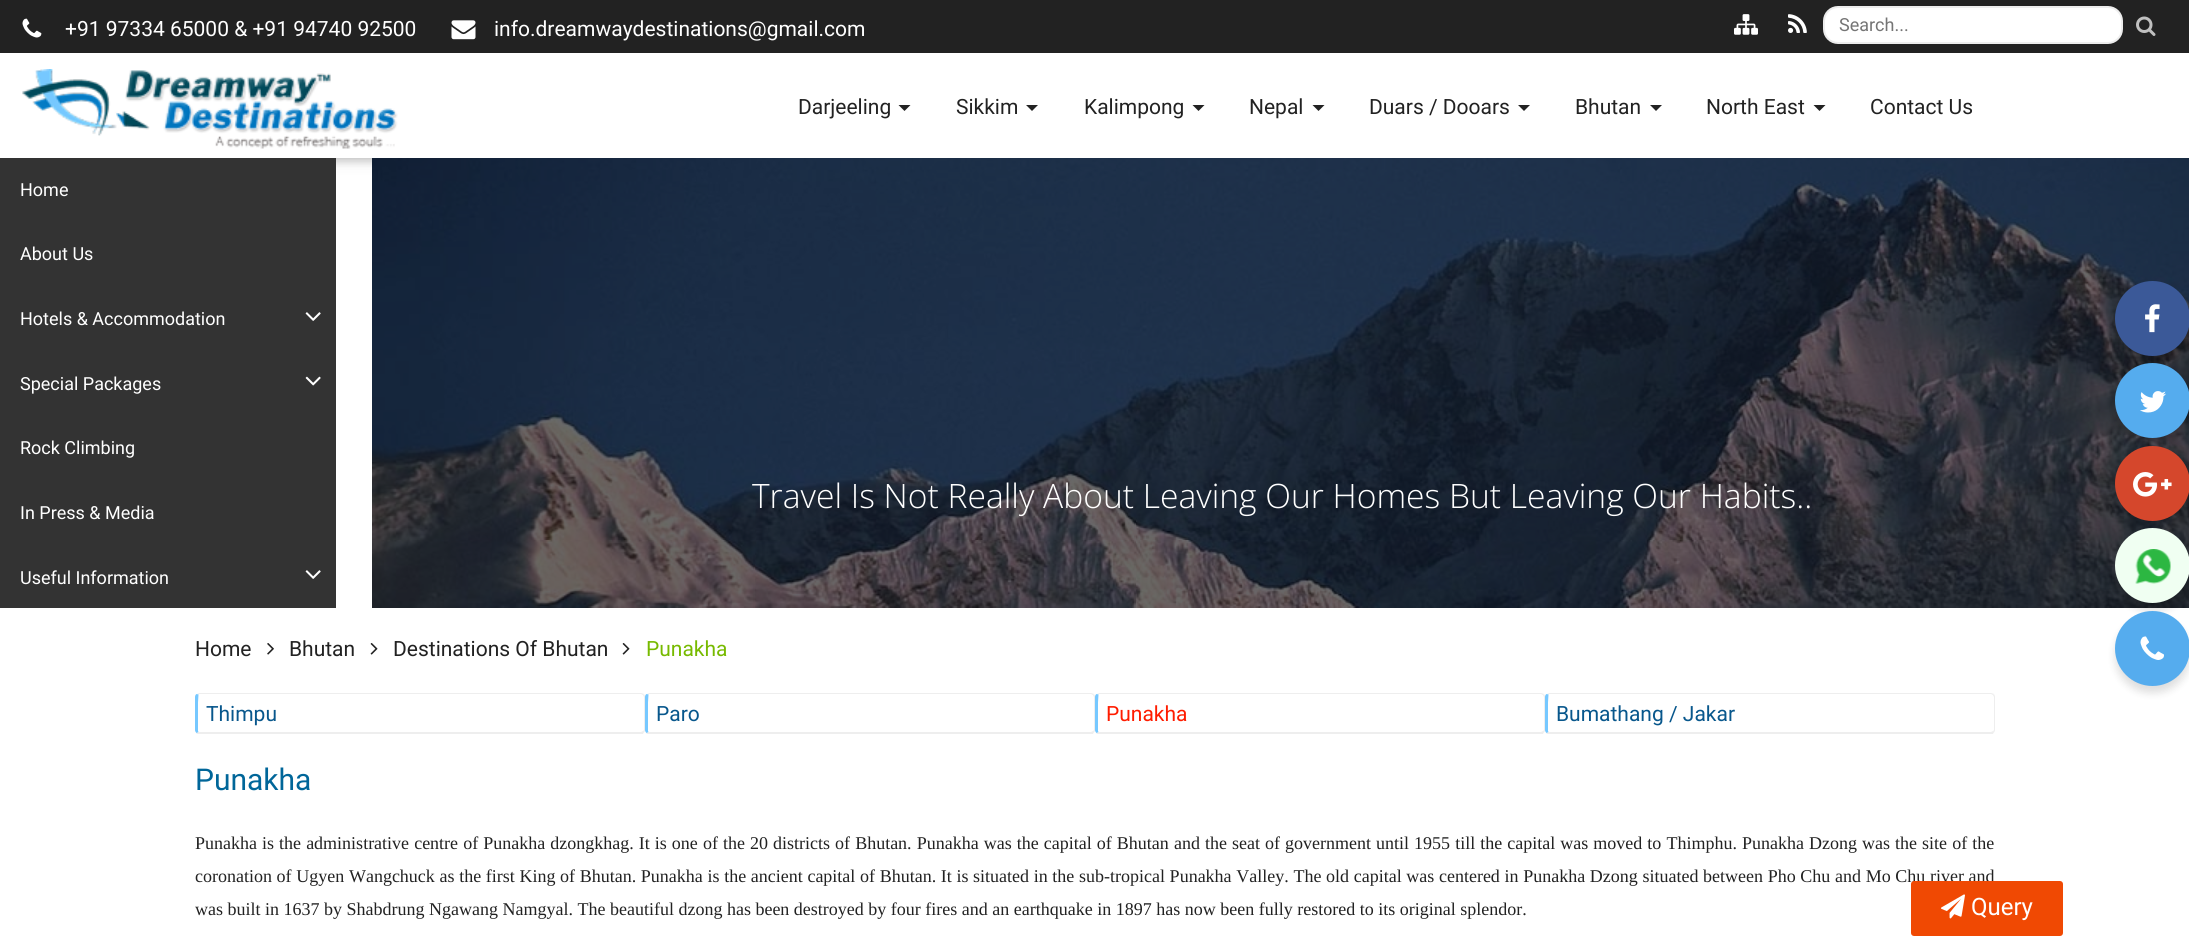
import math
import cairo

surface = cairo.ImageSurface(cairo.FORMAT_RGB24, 2189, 936)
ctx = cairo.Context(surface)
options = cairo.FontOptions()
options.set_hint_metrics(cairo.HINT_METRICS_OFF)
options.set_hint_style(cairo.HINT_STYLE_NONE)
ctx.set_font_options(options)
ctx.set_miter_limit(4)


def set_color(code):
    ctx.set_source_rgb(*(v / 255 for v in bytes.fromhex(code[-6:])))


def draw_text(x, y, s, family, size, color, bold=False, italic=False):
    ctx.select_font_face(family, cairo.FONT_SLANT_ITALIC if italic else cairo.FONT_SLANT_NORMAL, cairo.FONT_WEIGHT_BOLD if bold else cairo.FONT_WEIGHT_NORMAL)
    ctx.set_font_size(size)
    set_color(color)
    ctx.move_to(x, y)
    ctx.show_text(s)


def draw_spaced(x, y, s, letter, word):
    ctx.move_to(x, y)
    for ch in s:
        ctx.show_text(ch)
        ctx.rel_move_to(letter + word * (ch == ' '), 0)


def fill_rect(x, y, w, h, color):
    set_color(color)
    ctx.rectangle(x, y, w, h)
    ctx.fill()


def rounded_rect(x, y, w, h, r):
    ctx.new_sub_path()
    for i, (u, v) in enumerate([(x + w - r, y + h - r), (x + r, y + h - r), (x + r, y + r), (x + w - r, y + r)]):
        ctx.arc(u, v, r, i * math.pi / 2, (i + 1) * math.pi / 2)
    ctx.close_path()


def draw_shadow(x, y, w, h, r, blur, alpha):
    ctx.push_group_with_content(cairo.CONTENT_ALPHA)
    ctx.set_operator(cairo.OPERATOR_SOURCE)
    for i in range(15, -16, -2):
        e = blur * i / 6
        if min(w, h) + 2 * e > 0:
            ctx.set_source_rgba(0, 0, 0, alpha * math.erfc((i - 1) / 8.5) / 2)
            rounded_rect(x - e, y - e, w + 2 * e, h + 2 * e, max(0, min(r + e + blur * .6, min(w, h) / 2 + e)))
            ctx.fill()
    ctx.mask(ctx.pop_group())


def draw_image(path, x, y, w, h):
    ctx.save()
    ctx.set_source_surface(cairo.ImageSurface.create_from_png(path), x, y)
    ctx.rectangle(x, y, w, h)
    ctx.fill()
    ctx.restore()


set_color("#ffffff")
ctx.paint()
set_color("#000000")
draw_shadow(0, 56, 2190, 105, 0, 7.5, 0.12)
draw_shadow(0, 56, 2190, 105, 0, 4, 0.16)
fill_rect(0, 0, 2189, 53, "#222222")
draw_image("assets/img1.png", 22, 18, 20, 20)
draw_text(65, 36, "+91 97334 65000 & +91 94740 92500", "Roboto", 21, "#ffffff")
draw_image("assets/img2.png", 451, 20, 25, 20)
draw_text(494, 36, "info.dreamwaydestinations@gmail.com", "Roboto", 21, "#ffffff")
draw_image("assets/img3.png", 1734, 14, 24, 21)
draw_image("assets/img4.png", 1788, 14, 19, 19)
rounded_rect(1824, 7, 298, 36, 14)
ctx.fill_preserve()
set_color("#ededed")
ctx.stroke()
draw_text(1839, 31, "Search...", "Roboto", 18, "#757575")
draw_image("assets/img5.png", 2136, 16, 20, 20)
fill_rect(0, 53, 2189, 105, "#ffffff")
draw_image("assets/img6.png", 22, 69, 376, 80)
draw_text(798, 114, "Darjeeling", "Roboto", 21, "#222222")
ctx.new_path()
ctx.move_to(898.5, 105)
ctx.line_to(910.5, 105)
ctx.line_to(904.5, 111)
ctx.close_path()
ctx.fill()
draw_text(956, 114, "Sikkim", "Roboto", 21, "#222222")
ctx.new_path()
ctx.move_to(1026, 105)
ctx.line_to(1038, 105)
ctx.line_to(1032, 111)
ctx.close_path()
ctx.fill()
draw_text(1084, 114, "Kalimpong", "Roboto", 21, "#222222")
ctx.new_path()
ctx.move_to(1192.5, 105)
ctx.line_to(1204.5, 105)
ctx.line_to(1198.5, 111)
ctx.close_path()
ctx.fill()
draw_text(1249, 114, "Nepal", "Roboto", 21, "#222222")
ctx.new_path()
ctx.move_to(1312.5, 105)
ctx.line_to(1324.5, 105)
ctx.line_to(1318.5, 111)
ctx.close_path()
ctx.fill()
draw_text(1369, 114, "Duars / Dooars", "Roboto", 21, "#222222")
ctx.new_path()
ctx.move_to(1518, 105)
ctx.line_to(1530, 105)
ctx.line_to(1524, 111)
ctx.close_path()
ctx.fill()
draw_text(1575, 114, "Bhutan", "Roboto", 21, "#222222")
ctx.new_path()
ctx.move_to(1650, 105)
ctx.line_to(1662, 105)
ctx.line_to(1656, 111)
ctx.close_path()
ctx.fill()
draw_text(1706, 114, "North East", "Roboto", 21, "#222222")
ctx.new_path()
ctx.move_to(1813.5, 105)
ctx.line_to(1825.5, 105)
ctx.line_to(1819.5, 111)
ctx.close_path()
ctx.fill()
draw_text(1870, 114, "Contact Us", "Roboto", 21, "#222222")
fill_rect(0, 158, 336, 450, "#333333")
draw_text(20, 196, "Home", "Roboto", 18, "#ffffff")
draw_text(20, 260, "About Us", "Roboto", 18, "#ffffff")
draw_text(20, 325, "Hotels & Accommodation", "Roboto", 18, "#ffffff")
draw_image("assets/img7.png", 305, 312, 16, 9)
draw_text(20, 390, "Special Packages", "Roboto", 18, "#ffffff")
draw_image("assets/img8.png", 305, 376, 16, 10)
draw_text(20, 454, "Rock Climbing", "Roboto", 18, "#ffffff")
draw_text(20, 519, "In Press & Media", "Roboto", 18, "#ffffff")
draw_text(20, 584, "Useful Information", "Roboto", 18, "#ffffff")
draw_image("assets/img7.png", 305, 570, 16, 9)
draw_image("assets/img9.png", 372, 158, 1817, 450)
draw_text(752, 508, "Travel Is Not Really About Leaving Our Homes But Leaving Our Habits..", "Open Sans Light", 33.6, "#ffffff")
draw_text(195, 656, "Home", "Roboto", 21, "#222222")
draw_image("assets/img10.png", 267, 643, 7, 12)
draw_text(289, 656, "Bhutan", "Roboto", 21, "#222222")
draw_image("assets/img11.png", 370, 643, 8, 12)
draw_text(393, 656, "Destinations Of Bhutan", "Roboto", 21, "#222222")
draw_image("assets/img11.png", 622, 643, 8, 12)
draw_text(646, 656, "Punakha", "Roboto", 21, "#77ba00")
set_color("#eeeeee")
ctx.new_path()
ctx.move_to(199, 693)
ctx.line_to(197, 694)
ctx.line_to(198, 695)
ctx.line_to(199, 694)
ctx.line_to(641, 694)
ctx.line_to(643, 695)
ctx.line_to(644, 694)
ctx.line_to(641, 693)
ctx.close_path()
ctx.fill()
ctx.new_path()
ctx.move_to(645, 730)
ctx.line_to(645, 697)
ctx.curve_to(645, 696, 644.5, 695, 644, 694)
ctx.line_to(643, 695)
ctx.line_to(644, 697)
ctx.line_to(644, 730)
ctx.line_to(643, 731.5)
ctx.line_to(644, 732.5)
ctx.curve_to(644.5, 732, 645, 731, 645, 730)
ctx.close_path()
ctx.fill()
ctx.new_path()
ctx.move_to(197, 734)
ctx.line_to(196, 733)
ctx.line_to(198, 732)
ctx.line_to(641, 732)
ctx.line_to(643, 731)
ctx.line_to(644, 732)
ctx.line_to(643, 734)
ctx.close_path()
ctx.fill()
set_color("#76c8ff")
ctx.new_path()
ctx.move_to(195, 697)
ctx.line_to(195, 730)
ctx.curve_to(195, 731, 195.5, 732, 196.5, 733)
ctx.line_to(198.5, 732)
ctx.line_to(198, 731)
ctx.line_to(198, 702.5)
ctx.line_to(198.5, 694.5)
ctx.line_to(196.5, 694)
ctx.curve_to(195.5, 694.5, 195, 696, 195, 697)
ctx.close_path()
ctx.fill()
draw_text(206, 721, "Thimpu", "Roboto", 21, "#08578c")
set_color("#eeeeee")
ctx.new_path()
ctx.move_to(649, 693)
ctx.line_to(647, 694)
ctx.line_to(648, 695)
ctx.line_to(649, 694)
ctx.line_to(1091, 694)
ctx.line_to(1093, 695)
ctx.line_to(1094, 694)
ctx.line_to(1091, 693)
ctx.close_path()
ctx.fill()
ctx.new_path()
ctx.move_to(1095, 730)
ctx.line_to(1095, 697)
ctx.curve_to(1095, 696, 1094.5, 695, 1094, 694)
ctx.line_to(1093, 695)
ctx.line_to(1094, 697)
ctx.line_to(1094, 730)
ctx.line_to(1093, 731.5)
ctx.line_to(1094, 732.5)
ctx.curve_to(1094.5, 732, 1095, 731, 1095, 730)
ctx.close_path()
ctx.fill()
ctx.new_path()
ctx.move_to(647, 734)
ctx.line_to(646, 733)
ctx.line_to(648, 732)
ctx.line_to(1091, 732)
ctx.line_to(1093, 731)
ctx.line_to(1094, 732)
ctx.line_to(1093, 734)
ctx.close_path()
ctx.fill()
set_color("#76c8ff")
ctx.new_path()
ctx.move_to(645, 697)
ctx.line_to(645, 730)
ctx.curve_to(645, 731, 645.5, 732, 646.5, 733)
ctx.line_to(648.5, 732)
ctx.line_to(648, 731)
ctx.line_to(648, 702.5)
ctx.line_to(648.5, 694.5)
ctx.line_to(646.5, 694)
ctx.curve_to(645.5, 694.5, 645, 696, 645, 697)
ctx.close_path()
ctx.fill()
draw_text(656, 721, "Paro", "Roboto", 21, "#08578c")
set_color("#eeeeee")
ctx.new_path()
ctx.move_to(1099, 693)
ctx.line_to(1097, 694)
ctx.line_to(1098, 695)
ctx.line_to(1099, 694)
ctx.line_to(1541, 694)
ctx.line_to(1543, 695)
ctx.line_to(1544, 694)
ctx.line_to(1541, 693)
ctx.close_path()
ctx.fill()
ctx.new_path()
ctx.move_to(1545, 730)
ctx.line_to(1545, 697)
ctx.curve_to(1545, 696, 1544.5, 695, 1544, 694)
ctx.line_to(1543, 695)
ctx.line_to(1544, 697)
ctx.line_to(1544, 730)
ctx.line_to(1543, 731.5)
ctx.line_to(1544, 732.5)
ctx.curve_to(1544.5, 732, 1545, 731, 1545, 730)
ctx.close_path()
ctx.fill()
ctx.new_path()
ctx.move_to(1097, 734)
ctx.line_to(1096, 733)
ctx.line_to(1098, 732)
ctx.line_to(1541, 732)
ctx.line_to(1543, 731)
ctx.line_to(1544, 732)
ctx.line_to(1543, 734)
ctx.close_path()
ctx.fill()
set_color("#76c8ff")
ctx.new_path()
ctx.move_to(1095, 697)
ctx.line_to(1095, 730)
ctx.curve_to(1095, 731, 1095.5, 732, 1096.5, 733)
ctx.line_to(1098.5, 732)
ctx.line_to(1098, 731)
ctx.line_to(1098, 702.5)
ctx.line_to(1098.5, 694.5)
ctx.line_to(1096.5, 694)
ctx.curve_to(1095.5, 694.5, 1095, 696, 1095, 697)
ctx.close_path()
ctx.fill()
draw_text(1106, 721, "Punakha", "Roboto", 21, "#ff1c00")
set_color("#eeeeee")
ctx.new_path()
ctx.move_to(1549, 693)
ctx.line_to(1547, 694)
ctx.line_to(1548, 695)
ctx.line_to(1549, 694)
ctx.line_to(1991, 694)
ctx.line_to(1993, 695)
ctx.line_to(1994, 694)
ctx.line_to(1991, 693)
ctx.close_path()
ctx.fill()
ctx.new_path()
ctx.move_to(1995, 730)
ctx.line_to(1995, 697)
ctx.curve_to(1995, 696, 1994.5, 695, 1994, 694)
ctx.line_to(1993, 695)
ctx.line_to(1994, 697)
ctx.line_to(1994, 730)
ctx.line_to(1993, 731.5)
ctx.line_to(1994, 732.5)
ctx.curve_to(1994.5, 732, 1995, 731, 1995, 730)
ctx.close_path()
ctx.fill()
ctx.new_path()
ctx.move_to(1547, 734)
ctx.line_to(1546, 733)
ctx.line_to(1548, 732)
ctx.line_to(1991, 732)
ctx.line_to(1993, 731)
ctx.line_to(1994, 732)
ctx.line_to(1993, 734)
ctx.close_path()
ctx.fill()
set_color("#76c8ff")
ctx.new_path()
ctx.move_to(1545, 697)
ctx.line_to(1545, 730)
ctx.curve_to(1545, 731, 1545.5, 732, 1546.5, 733)
ctx.line_to(1548.5, 732)
ctx.line_to(1548, 731)
ctx.line_to(1548, 702.5)
ctx.line_to(1548.5, 694.5)
ctx.line_to(1546.5, 694)
ctx.curve_to(1545.5, 694.5, 1545, 696, 1545, 697)
ctx.close_path()
ctx.fill()
draw_text(1556, 721, "Bumathang / Jakar", "Roboto", 21, "#08578c")
set_color("#000000")
draw_shadow(2115, 288, 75, 75, 37.5, 4, 0.13)
set_color("#3b5998")
ctx.arc(2152.5, 318.5, 37.5, 0, 2 * math.pi)
ctx.fill()
draw_image("assets/img12.png", 2145, 304, 15, 29)
set_color("#000000")
draw_shadow(2115, 371, 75, 75, 37.5, 4, 0.13)
set_color("#55acee")
ctx.arc(2152.5, 400.5, 37.5, 0, 2 * math.pi)
ctx.fill()
draw_image("assets/img13.png", 2140, 391, 26, 22)
set_color("#d5472c")
ctx.arc(2152.5, 483.5, 37.5, 0, 2 * math.pi)
ctx.fill()
draw_image("assets/img14.png", 2133, 472, 39, 25)
set_color("#000000")
draw_shadow(2115, 536, 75, 75, 37.5, 4, 0.13)
set_color("#f0fff2")
ctx.arc(2152.5, 565.5, 37.5, 0, 2 * math.pi)
ctx.fill()
draw_image("assets/img15.png", 2135, 549, 36, 35)
set_color("#000000")
draw_shadow(2115, 618, 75, 75, 37.5, 4, 0.13)
set_color("#55acee")
ctx.arc(2152.5, 648.5, 37.5, 0, 2 * math.pi)
ctx.fill()
draw_image("assets/img16.png", 2140, 636, 24, 24)
draw_text(195, 790, "Punakha", "Roboto", 30, "#006699")
ctx.select_font_face("Liberation Serif")
ctx.set_font_size(18)
set_color("#222222")
draw_spaced(195, 849, "Punakha is the administrative centre of Punakha dzongkhag. It is one of the 20 districts of Bhutan. Punakha was the capital of Bhutan and the seat of government until 1955 till the capital was moved to Thimphu. Punakha Dzong was the site of the", 0, 0.55)
draw_spaced(195, 882, "coronation of Ugyen Wangchuck as the first King of Bhutan. Punakha is the ancient capital of Bhutan. It is situated in the sub-tropical Punakha Valley. The old capital was centered in Punakha Dzong situated between Pho Chu and Mo Chu river and", 0, 0.15)
draw_text(195, 915, "was built in 1637 by Shabdrung Ngawang Namgyal. The beautiful dzong has been destroyed by four fires and an earthquake in 1897 has now been fully restored to its original splendor.", "Liberation Serif", 18, "#222222")
set_color("#f04903")
rounded_rect(1911, 881, 152, 55, 3)
ctx.fill()
draw_image("assets/img17.png", 1941, 894, 24, 25)
draw_text(1971, 915, "Query", "Roboto", 24, "#ffffff")
surface.write_to_png("output.png")
